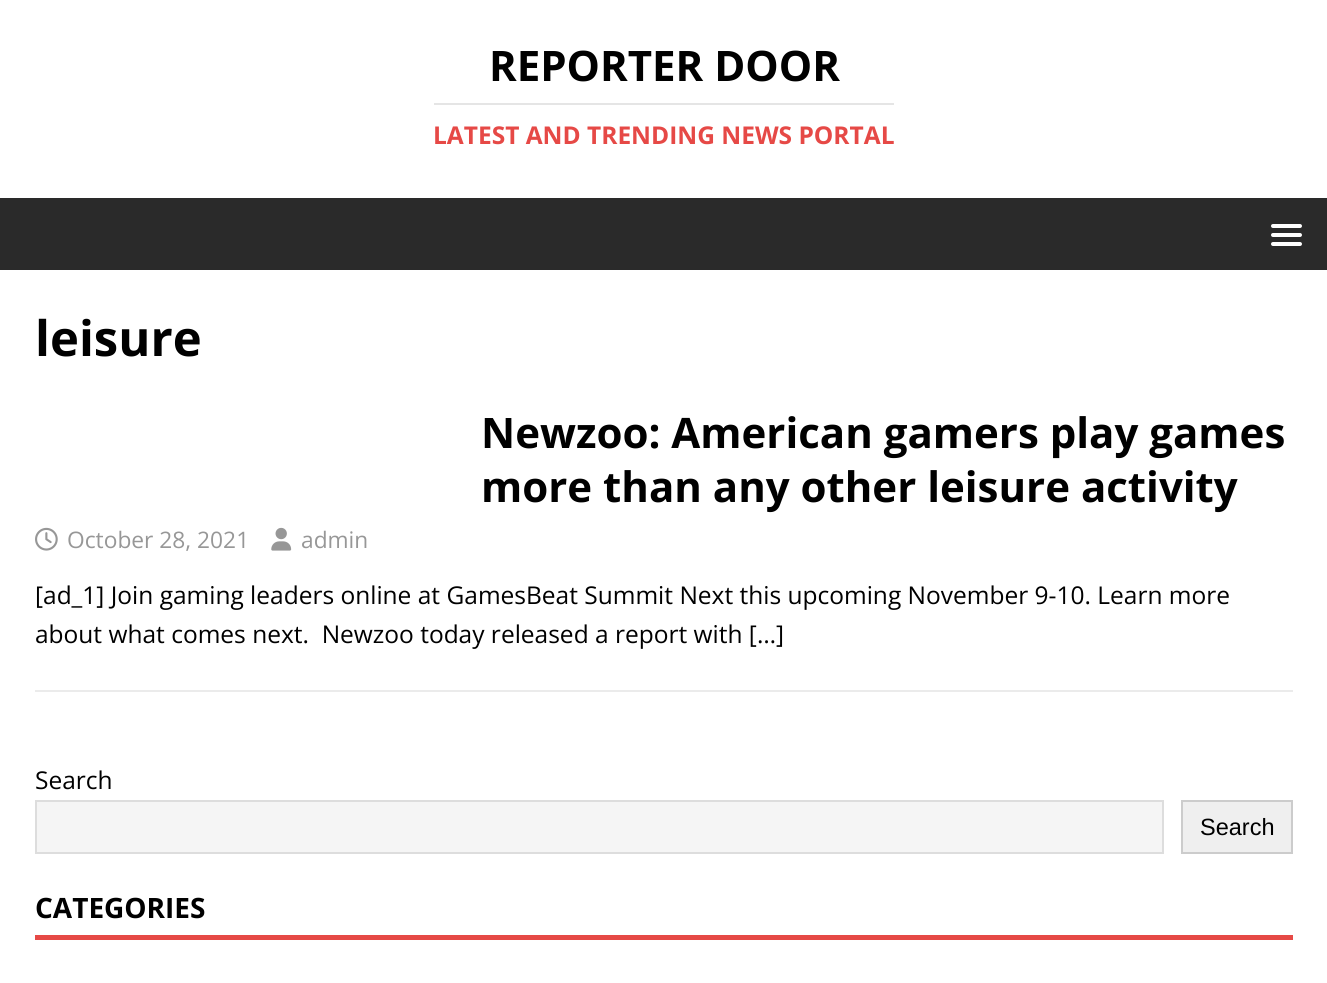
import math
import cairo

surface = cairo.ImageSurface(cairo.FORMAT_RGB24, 1327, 983)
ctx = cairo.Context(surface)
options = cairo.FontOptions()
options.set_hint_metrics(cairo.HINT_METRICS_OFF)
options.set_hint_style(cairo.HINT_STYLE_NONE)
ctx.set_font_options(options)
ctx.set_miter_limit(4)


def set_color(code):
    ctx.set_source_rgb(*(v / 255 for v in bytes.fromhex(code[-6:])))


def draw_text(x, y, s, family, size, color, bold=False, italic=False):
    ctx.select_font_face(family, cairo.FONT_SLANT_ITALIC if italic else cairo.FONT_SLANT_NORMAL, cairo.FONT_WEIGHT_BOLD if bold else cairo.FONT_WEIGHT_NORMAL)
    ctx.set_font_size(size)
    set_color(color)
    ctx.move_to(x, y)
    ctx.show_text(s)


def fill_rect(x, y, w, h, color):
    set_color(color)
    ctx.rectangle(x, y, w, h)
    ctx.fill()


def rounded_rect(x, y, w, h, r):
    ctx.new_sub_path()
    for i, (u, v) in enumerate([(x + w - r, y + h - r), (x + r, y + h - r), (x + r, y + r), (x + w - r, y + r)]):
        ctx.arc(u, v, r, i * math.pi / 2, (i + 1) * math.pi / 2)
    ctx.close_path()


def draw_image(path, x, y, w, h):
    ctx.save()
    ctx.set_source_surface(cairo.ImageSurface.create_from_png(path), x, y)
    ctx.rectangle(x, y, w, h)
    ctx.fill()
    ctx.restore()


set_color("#ffffff")
ctx.paint()
draw_text(489, 81, "REPORTER DOOR", "Open Sans", 42, "#000000", bold=True)
fill_rect(434, 103, 460, 2, "#e5e5e5")
draw_text(433, 144, "LATEST AND TRENDING NEWS PORTAL", "Open Sans", 24.5, "#e64946", bold=True)
fill_rect(0, 198, 1327, 72, "#2a2a2a")
set_color("#ffffff")
rounded_rect(1271, 224, 31, 4, 2)
ctx.fill()
rounded_rect(1271, 233, 31, 4, 2)
ctx.fill()
rounded_rect(1271, 242, 31, 4, 2)
ctx.fill()
draw_text(35, 356, "leisure", "Open Sans", 49, "#000000", bold=True)
fill_rect(35, 690, 1258, 2, "#ebebeb")
draw_text(481, 448, "Newzoo: American gamers play games", "Open Sans", 42, "#000000", bold=True)
draw_text(481, 502, "more than any other leisure activity", "Open Sans", 42, "#000000", bold=True)
draw_image("assets/img1.png", 35, 527, 23, 24)
draw_text(67, 548, "October 28, 2021", "Open Sans", 22.75, "#979797")
draw_image("assets/img2.png", 271, 527, 21, 24)
draw_text(301, 548, "admin", "Open Sans", 22.75, "#979797")
draw_text(35, 604, "[ad_1] Join gaming leaders online at GamesBeat Summit Next this upcoming November 9-10. Learn more", "Open Sans", 24.5, "#000000")
draw_text(35, 643, "about what comes next.  Newzoo today released a report with […]", "Open Sans", 24.5, "#000000")
draw_text(35, 789, "Search", "Open Sans", 24.5, "#000000")
set_color("#f5f5f5")
ctx.rectangle(36, 801, 1127, 52)
ctx.fill_preserve()
set_color("#dddddd")
ctx.stroke()
set_color("#efefef")
ctx.rectangle(1182, 801, 110, 52)
ctx.fill_preserve()
set_color("#cccccc")
ctx.stroke()
draw_text(1200, 835, "Search", "Liberation Sans", 23.5, "#000000")
fill_rect(35, 935, 1258, 5, "#e64946")
draw_text(35, 918, "CATEGORIES", "Open Sans", 28, "#000000", bold=True)
surface.write_to_png("output.png")
